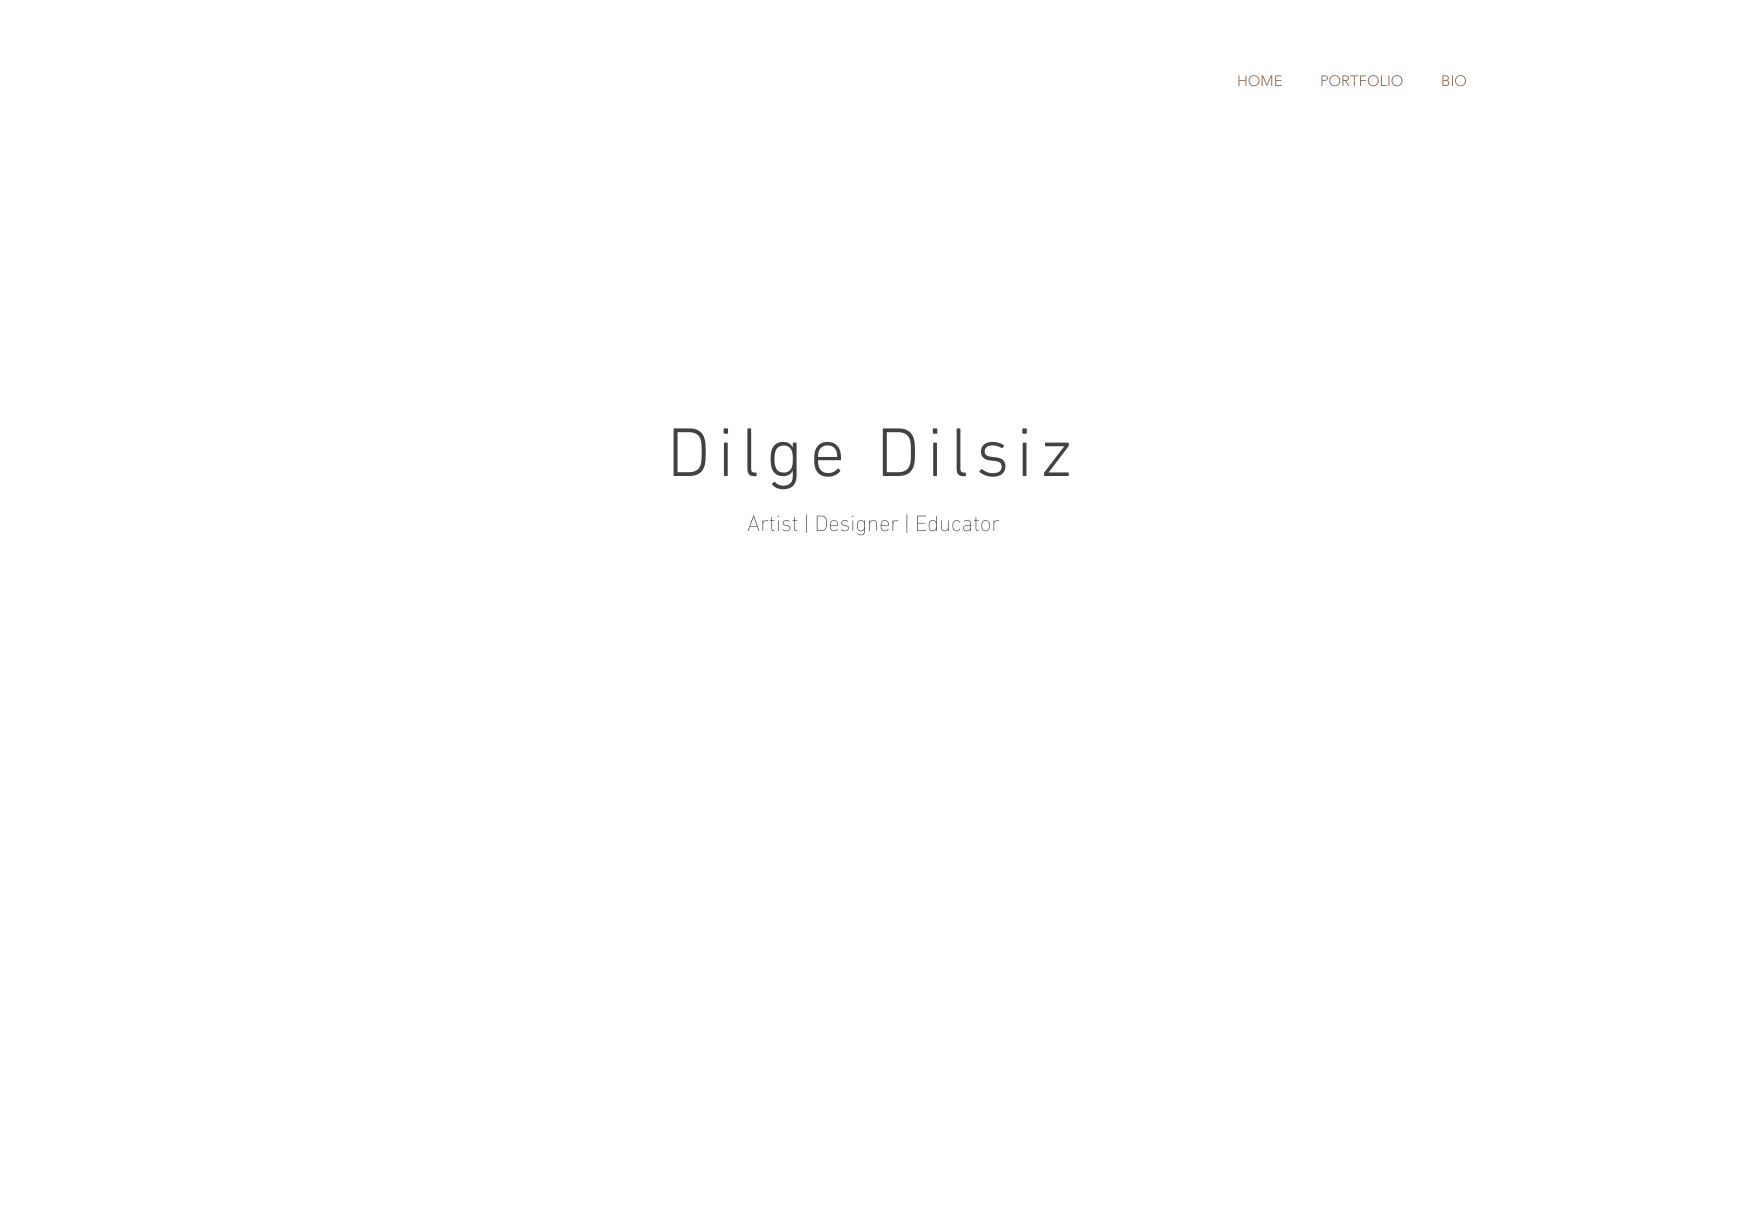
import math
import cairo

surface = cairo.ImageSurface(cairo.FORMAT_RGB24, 1746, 1209)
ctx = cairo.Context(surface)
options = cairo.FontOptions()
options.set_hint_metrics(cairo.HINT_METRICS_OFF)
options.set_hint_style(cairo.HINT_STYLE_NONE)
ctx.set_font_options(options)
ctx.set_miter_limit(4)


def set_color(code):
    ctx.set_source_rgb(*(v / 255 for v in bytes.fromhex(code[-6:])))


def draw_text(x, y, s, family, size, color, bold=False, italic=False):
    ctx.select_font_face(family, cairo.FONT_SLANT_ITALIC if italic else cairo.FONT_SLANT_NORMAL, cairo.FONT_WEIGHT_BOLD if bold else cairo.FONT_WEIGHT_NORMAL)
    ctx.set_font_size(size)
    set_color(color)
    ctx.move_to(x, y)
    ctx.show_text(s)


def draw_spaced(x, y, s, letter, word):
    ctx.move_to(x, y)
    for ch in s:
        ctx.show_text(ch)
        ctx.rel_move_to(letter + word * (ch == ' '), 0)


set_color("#ffffff")
ctx.paint()
draw_text(1237, 86, "HOME", "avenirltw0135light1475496 Light", 15, "#8f6b54")
draw_text(1320, 86, "PORTFOLIO", "avenirltw0135light1475496 Light", 15, "#8f6b54")
draw_text(1441, 86, "BIO", "avenirltw0135light1475496 Light", 15, "#8f6b54")
ctx.select_font_face("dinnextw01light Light")
ctx.set_font_size(70)
set_color("#414141")
draw_spaced(667, 476, "Dilge Dilsiz", 7, 0)
draw_text(747, 531, "Artist | Designer | Educator", "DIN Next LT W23 ExtraLight", 22.5, "#414141")
surface.write_to_png("output.png")
